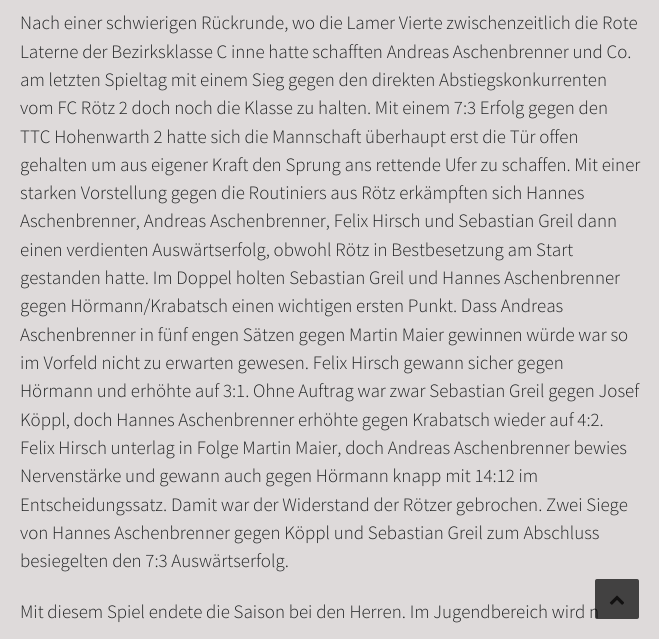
import math
import cairo

surface = cairo.ImageSurface(cairo.FORMAT_RGB24, 659, 639)
ctx = cairo.Context(surface)
options = cairo.FontOptions()
options.set_hint_metrics(cairo.HINT_METRICS_OFF)
options.set_hint_style(cairo.HINT_STYLE_NONE)
ctx.set_font_options(options)
ctx.set_miter_limit(4)


def set_color(code):
    ctx.set_source_rgb(*(v / 255 for v in bytes.fromhex(code[-6:])))


def draw_text(x, y, s, family, size, color, bold=False, italic=False):
    ctx.select_font_face(family, cairo.FONT_SLANT_ITALIC if italic else cairo.FONT_SLANT_NORMAL, cairo.FONT_WEIGHT_BOLD if bold else cairo.FONT_WEIGHT_NORMAL)
    ctx.set_font_size(size)
    set_color(color)
    ctx.move_to(x, y)
    ctx.show_text(s)


def rounded_rect(x, y, w, h, r):
    ctx.new_sub_path()
    for i, (u, v) in enumerate([(x + w - r, y + h - r), (x + r, y + h - r), (x + r, y + r), (x + w - r, y + r)]):
        ctx.arc(u, v, r, i * math.pi / 2, (i + 1) * math.pi / 2)
    ctx.close_path()


def draw_image(path, x, y, w, h):
    ctx.save()
    ctx.set_source_surface(cairo.ImageSurface.create_from_png(path), x, y)
    ctx.rectangle(x, y, w, h)
    ctx.fill()
    ctx.restore()


set_color("#dedada")
ctx.paint()
draw_text(20, 29, "Nach einer schwierigen Rückrunde, wo die Lamer Vierte zwischenzeitlich die Rote", "Source Sans Pro Light", 18.9, "#222425")
draw_text(20, 58, "Laterne der Bezirksklasse C inne hatte schafften Andreas Aschenbrenner und Co.", "Source Sans Pro Light", 18.9, "#222425")
draw_text(20, 86, "am letzten Spieltag mit einem Sieg gegen den direkten Abstiegskonkurrenten", "Source Sans Pro Light", 18.9, "#222425")
draw_text(20, 114, "vom FC Rötz 2 doch noch die Klasse zu halten. Mit einem 7:3 Erfolg gegen den", "Source Sans Pro Light", 18.9, "#222425")
draw_text(20, 143, "TTC Hohenwarth 2 hatte sich die Mannschaft überhaupt erst die Tür offen", "Source Sans Pro Light", 18.9, "#222425")
draw_text(20, 171, "gehalten um aus eigener Kraft den Sprung ans rettende Ufer zu schaffen. Mit einer", "Source Sans Pro Light", 18.9, "#222425")
draw_text(20, 199, "starken Vorstellung gegen die Routiniers aus Rötz erkämpften sich Hannes", "Source Sans Pro Light", 18.9, "#222425")
draw_text(20, 227, "Aschenbrenner, Andreas Aschenbrenner, Felix Hirsch und Sebastian Greil dann", "Source Sans Pro Light", 18.9, "#222425")
draw_text(20, 256, "einen verdienten Auswärtserfolg, obwohl Rötz in Bestbesetzung am Start", "Source Sans Pro Light", 18.9, "#222425")
draw_text(20, 284, "gestanden hatte. Im Doppel holten Sebastian Greil und Hannes Aschenbrenner", "Source Sans Pro Light", 18.9, "#222425")
draw_text(20, 312, "gegen Hörmann/Krabatsch einen wichtigen ersten Punkt. Dass Andreas", "Source Sans Pro Light", 18.9, "#222425")
draw_text(20, 341, "Aschenbrenner in fünf engen Sätzen gegen Martin Maier gewinnen würde war so", "Source Sans Pro Light", 18.9, "#222425")
draw_text(20, 369, "im Vorfeld nicht zu erwarten gewesen. Felix Hirsch gewann sicher gegen", "Source Sans Pro Light", 18.9, "#222425")
draw_text(20, 397, "Hörmann und erhöhte auf 3:1. Ohne Auftrag war zwar Sebastian Greil gegen Josef", "Source Sans Pro Light", 18.9, "#222425")
draw_text(20, 426, "Köppl, doch Hannes Aschenbrenner erhöhte gegen Krabatsch wieder auf 4:2.", "Source Sans Pro Light", 18.9, "#222425")
draw_text(20, 454, "Felix Hirsch unterlag in Folge Martin Maier, doch Andreas Aschenbrenner bewies", "Source Sans Pro Light", 18.9, "#222425")
draw_text(20, 482, "Nervenstärke und gewann auch gegen Hörmann knapp mit 14:12 im", "Source Sans Pro Light", 18.9, "#222425")
draw_text(20, 511, "Entscheidungssatz. Damit war der Widerstand der Rötzer gebrochen. Zwei Siege", "Source Sans Pro Light", 18.9, "#222425")
draw_text(20, 539, "von Hannes Aschenbrenner gegen Köppl und Sebastian Greil zum Abschluss", "Source Sans Pro Light", 18.9, "#222425")
draw_text(20, 567, "besiegelten den 7:3 Auswärtserfolg.", "Source Sans Pro Light", 18.9, "#222425")
draw_text(20, 618, "Mit diesem Spiel endete die Saison bei den Herren. Im Jugendbereich wird n", "Source Sans Pro Light", 18.9, "#222425")
ctx.set_source_rgba(0, 0, 0, 0.7)
rounded_rect(595, 579, 44, 40, 2)
ctx.fill()
draw_image("assets/img1.png", 609, 595, 15, 10)
surface.write_to_png("output.png")
